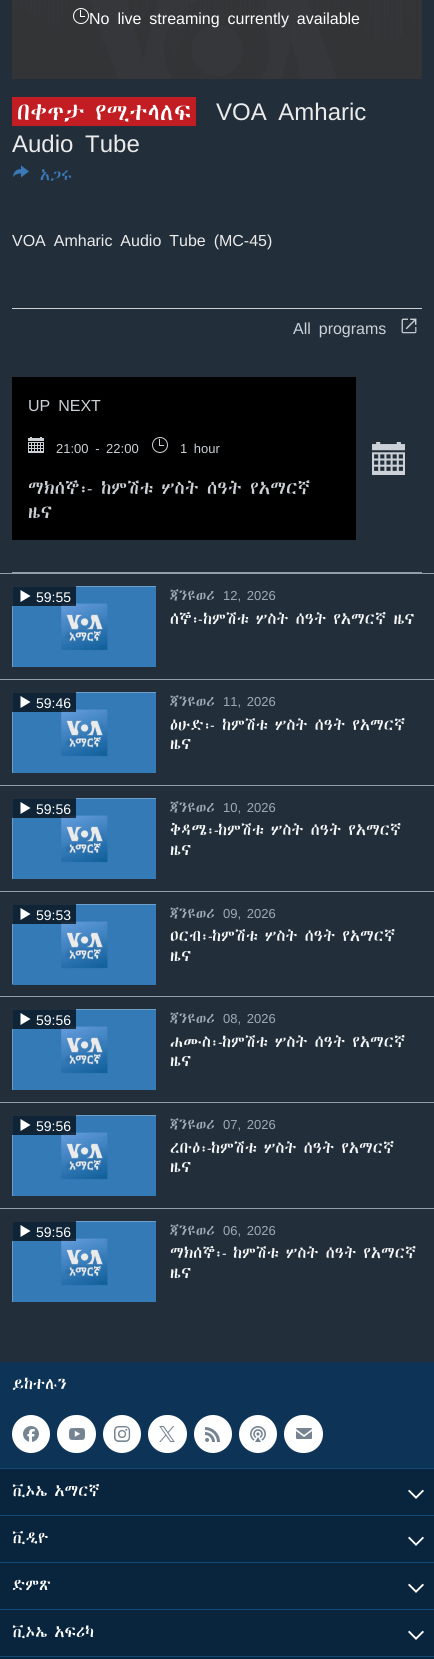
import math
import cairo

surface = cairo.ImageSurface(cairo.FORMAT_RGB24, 434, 1659)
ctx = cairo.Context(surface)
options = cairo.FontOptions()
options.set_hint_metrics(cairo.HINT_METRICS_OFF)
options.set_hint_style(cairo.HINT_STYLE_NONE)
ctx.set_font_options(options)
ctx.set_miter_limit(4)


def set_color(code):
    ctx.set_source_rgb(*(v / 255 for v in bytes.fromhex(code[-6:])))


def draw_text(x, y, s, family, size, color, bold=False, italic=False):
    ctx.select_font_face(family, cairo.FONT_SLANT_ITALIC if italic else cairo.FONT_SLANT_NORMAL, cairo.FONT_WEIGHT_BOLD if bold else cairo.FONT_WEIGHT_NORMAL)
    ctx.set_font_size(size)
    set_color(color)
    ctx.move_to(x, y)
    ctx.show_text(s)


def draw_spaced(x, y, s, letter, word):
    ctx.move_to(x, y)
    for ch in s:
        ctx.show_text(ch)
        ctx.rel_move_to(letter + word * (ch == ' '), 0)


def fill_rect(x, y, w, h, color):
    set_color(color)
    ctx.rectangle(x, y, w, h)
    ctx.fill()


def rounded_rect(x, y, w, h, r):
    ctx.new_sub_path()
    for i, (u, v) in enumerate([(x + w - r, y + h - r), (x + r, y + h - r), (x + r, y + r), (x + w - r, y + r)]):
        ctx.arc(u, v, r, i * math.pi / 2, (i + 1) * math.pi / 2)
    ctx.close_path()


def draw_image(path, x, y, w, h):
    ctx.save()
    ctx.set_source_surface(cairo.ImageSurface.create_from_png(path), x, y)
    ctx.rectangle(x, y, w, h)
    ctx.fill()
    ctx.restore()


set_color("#222f3a")
ctx.paint()
fill_rect(12, 0, 410, 79, "#323436")
draw_image("assets/img1.png", 12, 0, 409, 55)
draw_image("assets/img2.png", 89, 0, 248, 79)
draw_image("assets/img3.png", 73, 8, 16, 16)
ctx.select_font_face("Liberation Sans")
ctx.set_font_size(16)
set_color("#ffffff")
draw_spaced(89, 24, "No live streaming currently available", 0, 3.5)
fill_rect(12, 97, 184, 29, "#c11d22")
draw_text(17, 120, "በቀጥታ የሚተላለፍ", "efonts", 21, "#ffffff")
ctx.select_font_face("Liberation Sans")
ctx.set_font_size(24)
set_color("#ebebeb")
draw_spaced(216, 120, "VOA Amharic", 0, 5)
draw_spaced(12, 152, "Audio Tube", 0, 5)
draw_image("assets/img4.png", 13, 165, 16, 13)
draw_text(40, 180, "አጋሩ", "efonts", 14, "#3a79b7")
ctx.select_font_face("Liberation Sans")
ctx.set_font_size(16)
set_color("#ebebeb")
draw_spaced(12, 246, "VOA Amharic Audio Tube (MC-45)", 0, 3.5)
fill_rect(12, 308, 410, 1, "#cbd1d6")
draw_spaced(293, 334, "All programs", 0, 3.5)
draw_image("assets/img5.png", 401, 318, 16, 16)
fill_rect(12, 377, 344, 163, "#000000")
set_color("#cbd1d6")
draw_spaced(28, 411, "UP NEXT", 0, 3.5)
draw_image("assets/img6.png", 28, 437, 16, 16)
ctx.set_font_size(13)
draw_spaced(56, 453, "21:00 - 22:00", 0, 3)
draw_image("assets/img7.png", 152, 437, 16, 16)
draw_spaced(180, 453, "1 hour", 0, 3)
draw_text(28, 494, "ማክሰኞ፡", "efonts", 16, "#cbd1d6")
draw_text(87, 494, "-", "Liberation Sans", 16, "#cbd1d6")
draw_text(101, 494, "ከምሽቱ ሦስት ሰዓት የአማርኛ", "efonts", 16, "#cbd1d6")
draw_text(28, 518, "ዜና", "efonts", 16, "#cbd1d6")
draw_image("assets/img8.png", 372, 442, 33, 33)
fill_rect(12, 572, 410, 1, "#929ea9")
fill_rect(0, 573, 434, 1, "#929ea9")
fill_rect(12, 586, 144, 81, "#f6f7f8")
draw_image("assets/img9.png", 12, 586, 144, 81)
ctx.set_source_rgba(0, 0, 0, 0.7)
ctx.rectangle(12, 586, 64, 20)
ctx.fill()
set_color("#ffffff")
ctx.new_path()
ctx.move_to(20.5, 602)
ctx.line_to(30.5, 596)
ctx.line_to(20.5, 590)
ctx.close_path()
ctx.fill()
draw_text(36, 602, "59:55", "Liberation Sans", 14, "#ffffff")
draw_text(170, 600, "ጃንዩወሪ", "efonts", 13, "#a1aab4")
ctx.select_font_face("Liberation Sans")
draw_spaced(223, 600, "12, 2026", 0, 2)
draw_text(170, 624, "ሰኞ፡", "efonts", 14, "#f6f7f8")
draw_text(198, 624, "-", "Liberation Sans", 14, "#f6f7f8")
draw_text(203, 624, "ከምሽቱ ሦስት ሰዓት የአማርኛ ዜና", "efonts", 14, "#f6f7f8")
fill_rect(0, 679, 434, 1, "#929ea9")
fill_rect(12, 692, 144, 81, "#f6f7f8")
draw_image("assets/img10.png", 12, 692, 144, 81)
ctx.set_source_rgba(0, 0, 0, 0.7)
ctx.rectangle(12, 692, 64, 20)
ctx.fill()
set_color("#ffffff")
ctx.new_path()
ctx.move_to(20.5, 708)
ctx.line_to(30.5, 702)
ctx.line_to(20.5, 696)
ctx.close_path()
ctx.fill()
draw_text(36, 708, "59:46", "Liberation Sans", 14, "#ffffff")
draw_text(170, 706, "ጃንዩወሪ", "efonts", 13, "#a1aab4")
ctx.select_font_face("Liberation Sans")
draw_spaced(223, 706, "11, 2026", 0, 2)
draw_text(170, 730, "ዕሁድ፡", "efonts", 14, "#f6f7f8")
draw_text(210, 730, "-", "Liberation Sans", 14, "#f6f7f8")
draw_text(222, 730, "ከምሽቱ ሦስት ሰዓት የአማርኛ", "efonts", 14, "#f6f7f8")
draw_text(170, 749, "ዜና", "efonts", 14, "#f6f7f8")
fill_rect(0, 785, 434, 1, "#929ea9")
fill_rect(12, 798, 144, 81, "#f6f7f8")
draw_image("assets/img10.png", 12, 798, 144, 81)
ctx.set_source_rgba(0, 0, 0, 0.7)
ctx.rectangle(12, 798, 64, 20)
ctx.fill()
set_color("#ffffff")
ctx.new_path()
ctx.move_to(20.5, 814)
ctx.line_to(30.5, 808)
ctx.line_to(20.5, 802)
ctx.close_path()
ctx.fill()
draw_text(36, 814, "59:56", "Liberation Sans", 14, "#ffffff")
draw_text(170, 812, "ጃንዩወሪ", "efonts", 13, "#a1aab4")
ctx.select_font_face("Liberation Sans")
draw_spaced(223, 812, "10, 2026", 0, 2)
draw_text(170, 835, "ቅዳሜ፡", "efonts", 14, "#f6f7f8")
draw_text(214, 835, "-", "Liberation Sans", 14, "#f6f7f8")
draw_text(218, 835, "ከምሽቱ ሦስት ሰዓት የአማርኛ", "efonts", 14, "#f6f7f8")
draw_text(170, 855, "ዜና", "efonts", 14, "#f6f7f8")
fill_rect(0, 891, 434, 1, "#929ea9")
fill_rect(12, 904, 144, 80, "#f6f7f8")
draw_image("assets/img11.png", 12, 904, 144, 81)
ctx.set_source_rgba(0, 0, 0, 0.7)
ctx.rectangle(12, 904, 64, 20)
ctx.fill()
set_color("#ffffff")
ctx.new_path()
ctx.move_to(20.5, 920)
ctx.line_to(30.5, 914)
ctx.line_to(20.5, 908)
ctx.close_path()
ctx.fill()
draw_text(36, 920, "59:53", "Liberation Sans", 14, "#ffffff")
draw_text(170, 918, "ጃንዩወሪ", "efonts", 13, "#a1aab4")
ctx.select_font_face("Liberation Sans")
draw_spaced(223, 918, "09, 2026", 0, 2)
draw_text(170, 941, "ዐርብ፡", "efonts", 14, "#f6f7f8")
draw_text(208, 941, "-", "Liberation Sans", 14, "#f6f7f8")
draw_text(212, 941, "ከምሽቱ ሦስት ሰዓት የአማርኛ", "efonts", 14, "#f6f7f8")
draw_text(170, 961, "ዜና", "efonts", 14, "#f6f7f8")
fill_rect(0, 996, 434, 1, "#929ea9")
fill_rect(12, 1009, 144, 81, "#f6f7f8")
draw_image("assets/img10.png", 12, 1009, 144, 81)
ctx.set_source_rgba(0, 0, 0, 0.7)
ctx.rectangle(12, 1009, 64, 20)
ctx.fill()
set_color("#ffffff")
ctx.new_path()
ctx.move_to(20.5, 1025)
ctx.line_to(30.5, 1019)
ctx.line_to(20.5, 1013)
ctx.close_path()
ctx.fill()
draw_text(36, 1025, "59:56", "Liberation Sans", 14, "#ffffff")
draw_text(170, 1023, "ጃንዩወሪ", "efonts", 13, "#a1aab4")
ctx.select_font_face("Liberation Sans")
draw_spaced(223, 1023, "08, 2026", 0, 2)
draw_text(170, 1047, "ሐሙስ፡", "efonts", 14, "#f6f7f8")
draw_text(218, 1047, "-", "Liberation Sans", 14, "#f6f7f8")
draw_text(222, 1047, "ከምሽቱ ሦስት ሰዓት የአማርኛ", "efonts", 14, "#f6f7f8")
draw_text(170, 1066, "ዜና", "efonts", 14, "#f6f7f8")
fill_rect(0, 1102, 434, 1, "#929ea9")
fill_rect(12, 1115, 144, 81, "#f6f7f8")
draw_image("assets/img10.png", 12, 1115, 144, 81)
ctx.set_source_rgba(0, 0, 0, 0.7)
ctx.rectangle(12, 1115, 64, 20)
ctx.fill()
set_color("#ffffff")
ctx.new_path()
ctx.move_to(20.5, 1131)
ctx.line_to(30.5, 1125)
ctx.line_to(20.5, 1119)
ctx.close_path()
ctx.fill()
draw_text(36, 1131, "59:56", "Liberation Sans", 14, "#ffffff")
draw_text(170, 1129, "ጃንዩወሪ", "efonts", 13, "#a1aab4")
ctx.select_font_face("Liberation Sans")
draw_spaced(223, 1129, "07, 2026", 0, 2)
draw_text(170, 1153, "ረቡዕ፡", "efonts", 14, "#f6f7f8")
draw_text(207, 1153, "-", "Liberation Sans", 14, "#f6f7f8")
draw_text(211, 1153, "ከምሽቱ ሦስት ሰዓት የአማርኛ", "efonts", 14, "#f6f7f8")
draw_text(170, 1172, "ዜና", "efonts", 14, "#f6f7f8")
fill_rect(0, 1208, 434, 1, "#929ea9")
fill_rect(12, 1221, 144, 81, "#f6f7f8")
draw_image("assets/img10.png", 12, 1221, 144, 81)
ctx.set_source_rgba(0, 0, 0, 0.7)
ctx.rectangle(12, 1221, 64, 20)
ctx.fill()
set_color("#ffffff")
ctx.new_path()
ctx.move_to(20.5, 1237)
ctx.line_to(30.5, 1231)
ctx.line_to(20.5, 1225)
ctx.close_path()
ctx.fill()
draw_text(36, 1237, "59:56", "Liberation Sans", 14, "#ffffff")
draw_text(170, 1235, "ጃንዩወሪ", "efonts", 13, "#a1aab4")
ctx.select_font_face("Liberation Sans")
draw_spaced(223, 1235, "06, 2026", 0, 2)
draw_text(170, 1258, "ማክሰኞ፡", "efonts", 14, "#f6f7f8")
draw_text(222, 1258, "-", "Liberation Sans", 14, "#f6f7f8")
draw_text(233, 1258, "ከምሽቱ ሦስት ሰዓት የአማርኛ", "efonts", 14, "#f6f7f8")
draw_text(170, 1278, "ዜና", "efonts", 14, "#f6f7f8")
fill_rect(0, 1362, 434, 106, "#0d3456")
draw_text(12, 1389, "ይከተሉን", "efonts", 14, "#ffffff")
ctx.new_path()
ctx.arc(31, 1434, 19, 0, 2 * math.pi)
ctx.fill()
draw_image("assets/img12.png", 23, 1426, 16, 16)
rounded_rect(57, 1415, 39, 38, 19)
ctx.fill()
draw_image("assets/img13.png", 69, 1428, 16, 12)
ctx.arc(122, 1434, 19, 0, 2 * math.pi)
ctx.fill()
draw_image("assets/img14.png", 114, 1426, 17, 16)
rounded_rect(148, 1415, 39, 38, 19)
ctx.fill()
draw_image("assets/img15.png", 159, 1426, 16, 16)
ctx.arc(213, 1434, 19, 0, 2 * math.pi)
ctx.fill()
draw_image("assets/img16.png", 205, 1427, 15, 15)
ctx.arc(258, 1434, 19, 0, 2 * math.pi)
ctx.fill()
draw_image("assets/img17.png", 250, 1426, 16, 16)
rounded_rect(284, 1415, 39, 38, 19)
ctx.fill()
draw_image("assets/img18.png", 296, 1428, 16, 11)
fill_rect(0, 1468, 434, 1, "#134976")
fill_rect(0, 1469, 434, 46, "#09243d")
draw_text(12, 1496, "ቪኦኤ አማርኛ", "efonts", 14, "#ffffff")
draw_image("assets/img19.png", 408, 1489, 16, 10)
fill_rect(0, 1515, 434, 1, "#134976")
fill_rect(0, 1516, 434, 46, "#09243d")
draw_text(12, 1543, "ቪዲዮ", "efonts", 14, "#ffffff")
draw_image("assets/img19.png", 408, 1536, 16, 10)
fill_rect(0, 1562, 434, 1, "#134976")
fill_rect(0, 1563, 434, 46, "#09243d")
draw_text(12, 1590, "ድምጽ", "efonts", 14, "#ffffff")
draw_image("assets/img19.png", 408, 1583, 16, 10)
fill_rect(0, 1609, 434, 1, "#134976")
fill_rect(0, 1610, 434, 46, "#09243d")
draw_text(12, 1637, "ቪኦኤ አፍሪካ", "efonts", 14, "#ffffff")
draw_image("assets/img19.png", 408, 1630, 16, 10)
fill_rect(0, 1656, 434, 1, "#134976")
fill_rect(0, 1657, 434, 2, "#09243d")
surface.write_to_png("output.png")
